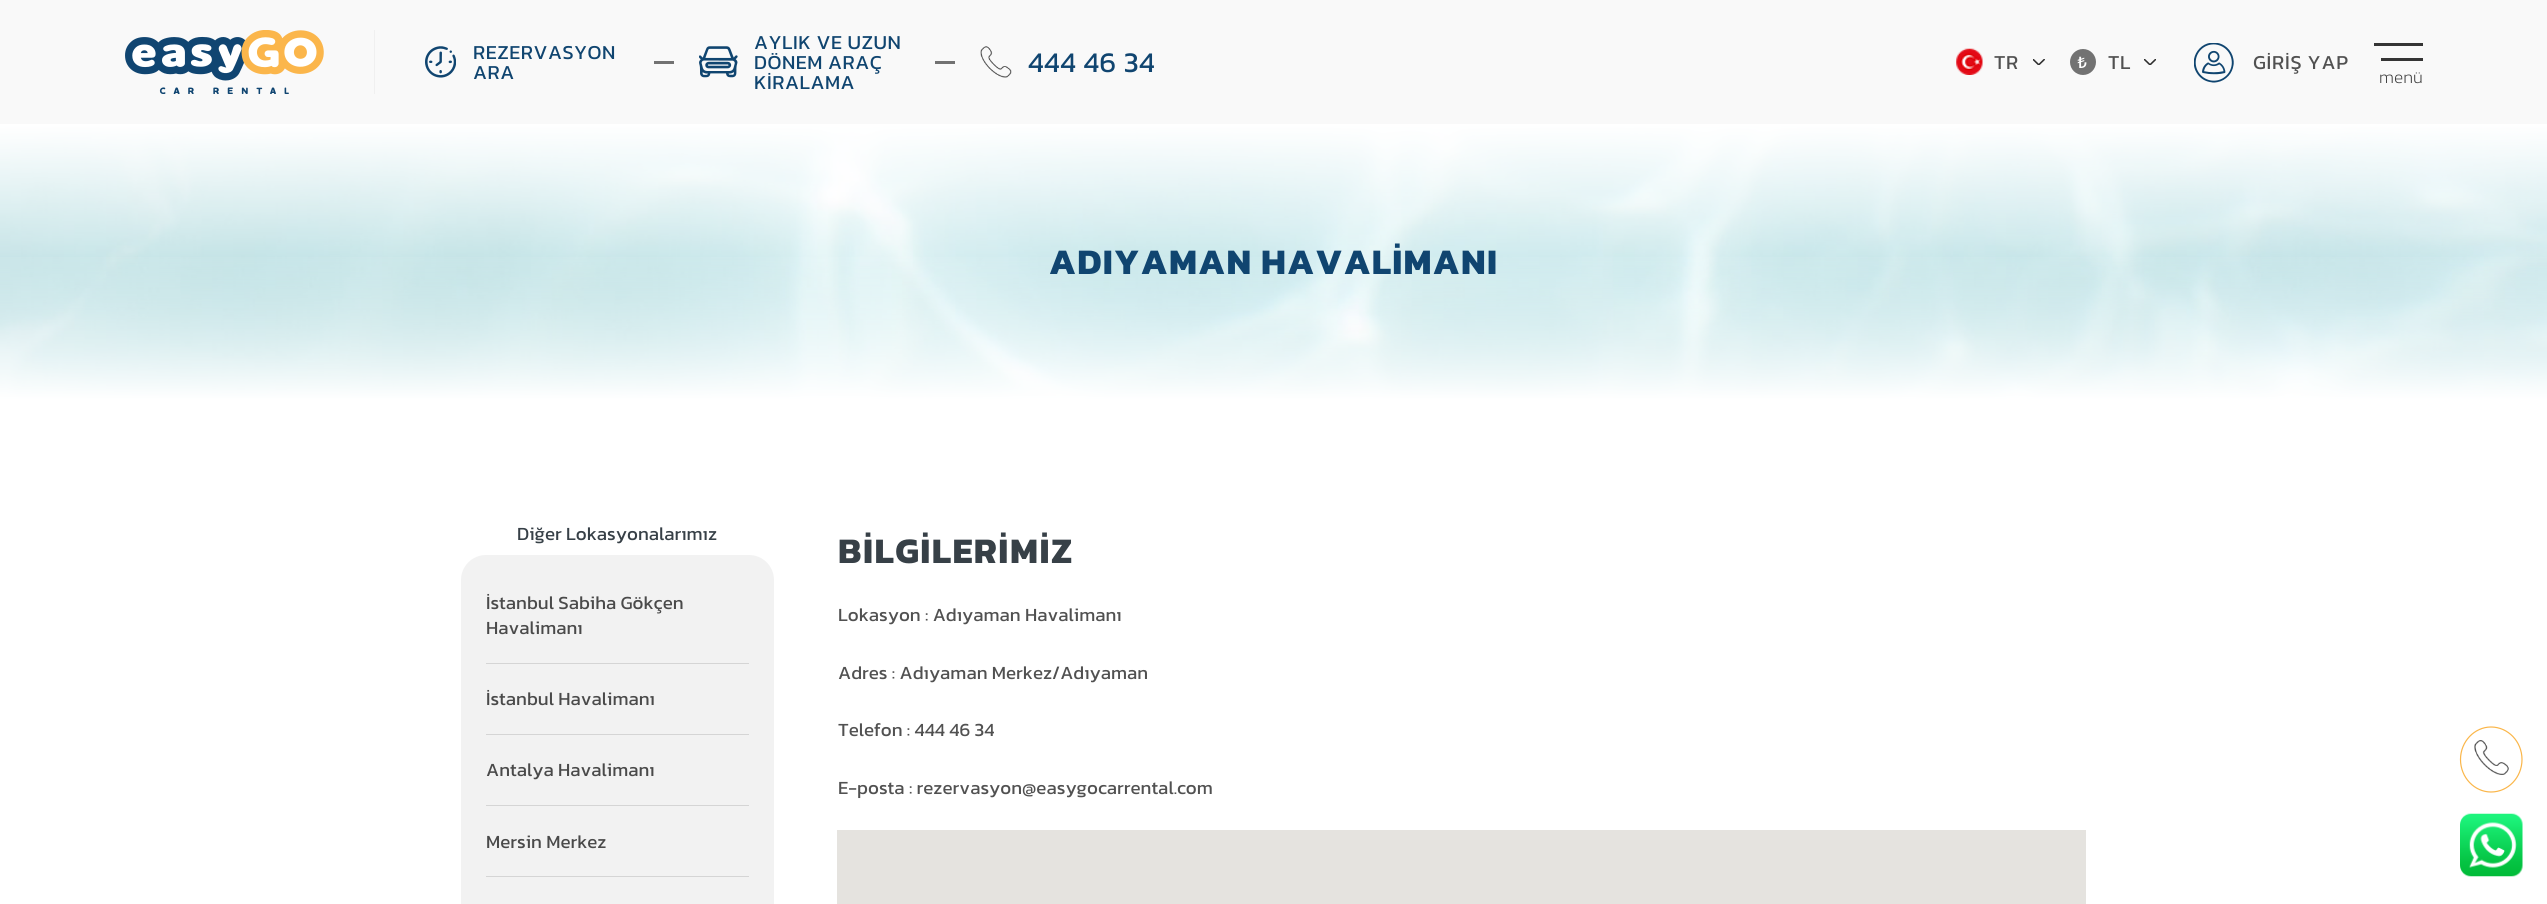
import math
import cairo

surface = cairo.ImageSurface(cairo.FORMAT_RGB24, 2547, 904)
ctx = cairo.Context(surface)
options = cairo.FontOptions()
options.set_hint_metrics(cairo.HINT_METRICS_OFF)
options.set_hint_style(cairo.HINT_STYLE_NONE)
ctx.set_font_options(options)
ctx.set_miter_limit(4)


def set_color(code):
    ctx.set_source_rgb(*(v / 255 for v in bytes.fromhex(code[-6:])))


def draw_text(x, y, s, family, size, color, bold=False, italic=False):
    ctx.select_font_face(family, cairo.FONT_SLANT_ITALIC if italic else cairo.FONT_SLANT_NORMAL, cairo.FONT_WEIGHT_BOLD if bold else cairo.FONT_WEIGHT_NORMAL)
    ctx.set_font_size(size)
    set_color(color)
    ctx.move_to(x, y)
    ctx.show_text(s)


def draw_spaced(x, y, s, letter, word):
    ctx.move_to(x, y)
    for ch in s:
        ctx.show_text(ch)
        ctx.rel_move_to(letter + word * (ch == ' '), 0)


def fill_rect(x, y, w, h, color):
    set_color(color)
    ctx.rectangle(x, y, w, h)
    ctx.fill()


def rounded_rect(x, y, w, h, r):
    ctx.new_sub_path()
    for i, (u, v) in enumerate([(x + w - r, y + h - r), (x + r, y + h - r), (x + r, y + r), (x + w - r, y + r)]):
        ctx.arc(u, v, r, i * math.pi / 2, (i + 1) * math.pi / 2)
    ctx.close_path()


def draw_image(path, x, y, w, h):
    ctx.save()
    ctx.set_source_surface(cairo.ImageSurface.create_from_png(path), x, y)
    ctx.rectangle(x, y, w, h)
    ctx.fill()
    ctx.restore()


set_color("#ffffff")
ctx.paint()
fill_rect(0, 0, 2547, 124, "#f9f9f9")
fill_rect(374, 30, 1, 64, "#f0f0f0")
draw_image("assets/img1.png", 125, 30, 199, 64)
draw_image("assets/img2.png", 425, 46, 31, 32)
ctx.select_font_face("Kanit")
ctx.set_font_size(20)
set_color("#104570")
draw_spaced(473, 59, "REZERVASYON", 0.5, 0)
draw_spaced(473, 79, "ARA", 0.5, 0)
fill_rect(654, 61, 20, 3, "#727272")
draw_image("assets/img3.png", 699, 46, 39, 32)
set_color("#104570")
draw_spaced(754, 49, "AYLIK VE UZUN", 0.5, 0)
draw_spaced(754, 69, "DÖNEM ARAÇ", 0.5, 0)
draw_spaced(754, 89, "KİRALAMA", 0.5, 0)
fill_rect(935, 61, 20, 3, "#727272")
draw_image("assets/img4.png", 980, 46, 32, 32)
ctx.set_font_size(28.75)
set_color("#104570")
draw_spaced(1028, 72, "444 46 34", 0.5, 0)
draw_image("assets/img5.png", 1956, 48, 27, 27)
ctx.set_font_size(20)
set_color("#515151")
draw_spaced(1994, 69, "TR", 0.75, 0)
draw_image("assets/img6.png", 2033, 59, 12, 6)
set_color("#727272")
ctx.arc(2083, 62, 13, 0, 2 * math.pi)
ctx.fill()
ctx.set_font_size(17.5)
set_color("#ffffff")
draw_spaced(2077, 68, "₺", 0.75, 0)
ctx.set_font_size(20)
set_color("#515151")
draw_spaced(2108, 69, "TL", 0.75, 0)
draw_image("assets/img7.png", 2144, 59, 12, 6)
draw_image("assets/img8.png", 2194, 43, 40, 40)
draw_spaced(2253, 69, "GİRİŞ YAP", 0.75, 0)
fill_rect(2374, 43, 49, 3, "#353535")
fill_rect(2381, 58, 42, 3, "#353535")
draw_text(2379, 83, "menü", "Kanit ExtraLight", 17.5, "#353535")
draw_image("assets/img9.png", 0, 126, 2547, 273)
gradient = cairo.LinearGradient(1274, 124, 1274, 399)
gradient.add_color_stop_rgba(0, 1, 1, 1, 1)
gradient.add_color_stop_rgba(1, 1, 1, 1, 0)
ctx.set_source(gradient)
ctx.rectangle(0, 126, 2547, 267)
ctx.fill()
gradient = cairo.LinearGradient(1274, 400, 1274, 250)
gradient.add_color_stop_rgba(0, 1, 1, 1, 1)
gradient.add_color_stop_rgba(1, 1, 1, 1, 0)
ctx.set_source(gradient)
ctx.rectangle(0, 257, 2547, 142)
ctx.fill()
ctx.select_font_face("Kanit", cairo.FONT_SLANT_NORMAL, cairo.FONT_WEIGHT_BOLD)
ctx.set_font_size(36.25)
set_color("#104570")
draw_spaced(1049, 274, "ADIYAMAN HAVALİMANI", 1.25, 0)
draw_text(517, 540, "Diğer Lokasyonalarımız", "Kanit", 18.75, "#374047")
set_color("#f2f2f2")
rounded_rect(461, 555, 313, 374, 25)
ctx.fill()
fill_rect(486, 663, 263, 1, "#d5d5d5")
draw_text(486, 609, "İstanbul Sabiha Gökçen", "Kanit", 18.75, "#4a4a4a")
draw_text(486, 634, "Havalimanı", "Kanit", 18.75, "#4a4a4a")
fill_rect(486, 734, 263, 1, "#d5d5d5")
draw_text(486, 705, "İstanbul Havalimanı", "Kanit", 18.75, "#4a4a4a")
fill_rect(486, 805, 263, 1, "#d5d5d5")
draw_text(486, 776, "Antalya Havalimanı", "Kanit", 18.75, "#4a4a4a")
fill_rect(486, 876, 263, 1, "#d5d5d5")
draw_text(486, 848, "Mersin Merkez", "Kanit", 18.75, "#4a4a4a")
ctx.select_font_face("Kanit", cairo.FONT_SLANT_NORMAL, cairo.FONT_WEIGHT_BOLD)
ctx.set_font_size(36.25)
set_color("#374047")
draw_spaced(838, 563, "BİLGİLERİMİZ", 1.5, 0)
draw_text(838, 621, "Lokasyon : Adıyaman Havalimanı", "Kanit", 18.75, "#515151")
draw_text(838, 679, "Adres : Adıyaman Merkez/Adıyaman", "Kanit", 18.75, "#515151")
draw_text(838, 736, "Telefon : 444 46 34", "Kanit", 18.75, "#515151")
draw_text(838, 794, "E-posta : rezervasyon@easygocarrental.com", "Kanit", 18.75, "#515151")
fill_rect(837, 830, 1249, 74, "#e5e3df")
ctx.new_path()
ctx.move_to(2491, 727)
ctx.curve_to(2508, 727, 2522, 741.5, 2522, 759.5)
ctx.curve_to(2522, 777.5, 2508, 792, 2491, 792)
ctx.curve_to(2474.5, 792, 2460.5, 777.5, 2460.5, 759.5)
ctx.curve_to(2460.5, 741.5, 2474.5, 727, 2491, 727)
ctx.close_path()
set_color("#fab64a")
ctx.set_line_width(1.2)
ctx.stroke()
draw_image("assets/img10.png", 2474, 740, 35, 35)
draw_image("assets/img11.png", 2460, 813, 63, 64)
surface.write_to_png("output.png")
